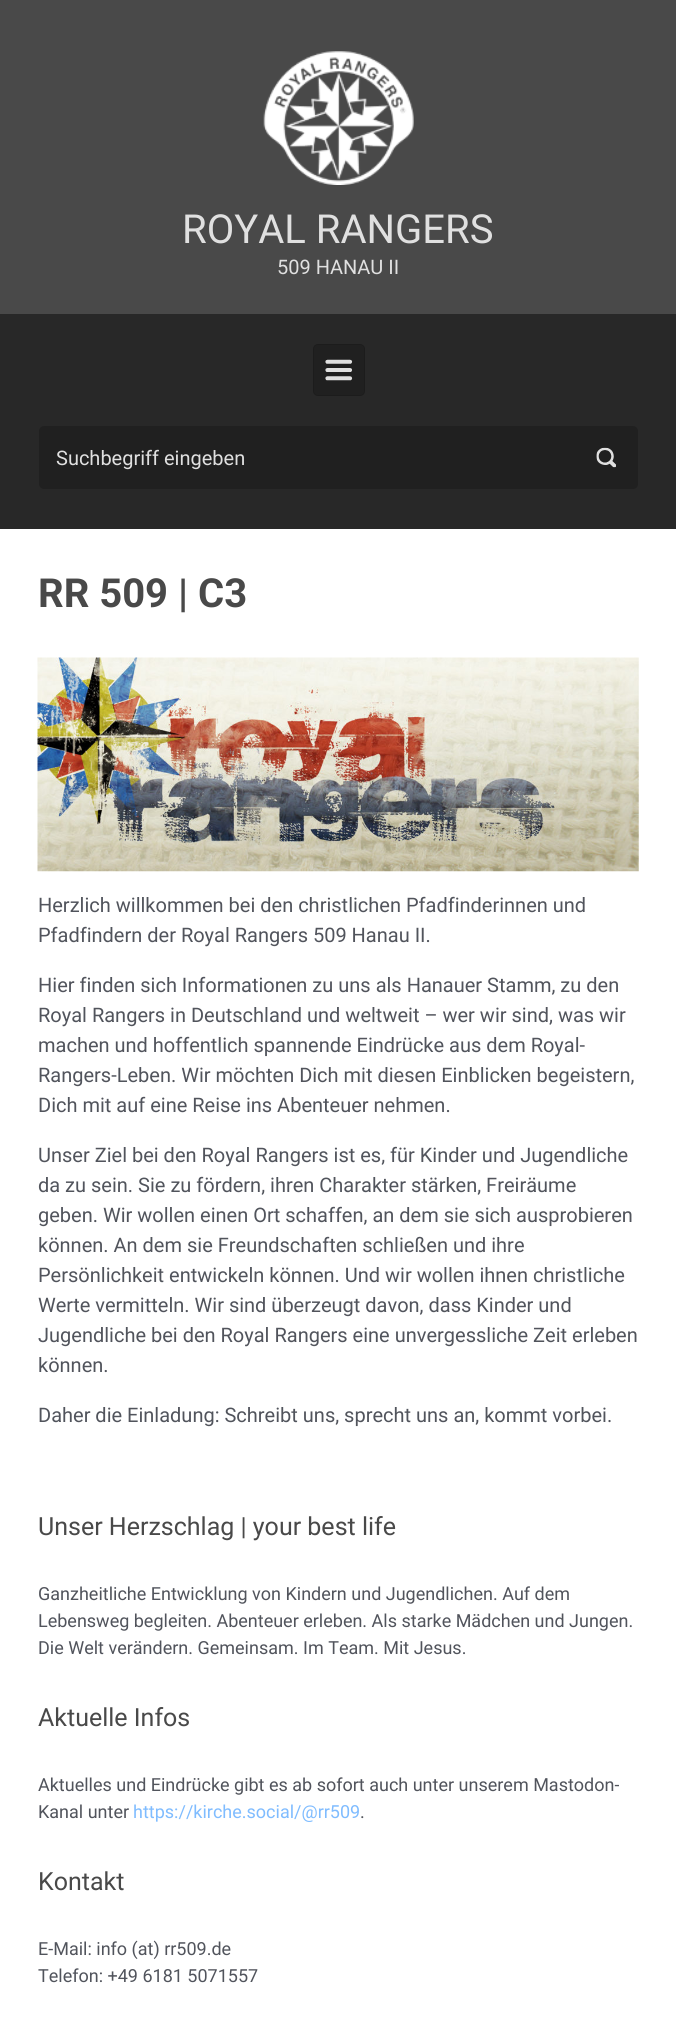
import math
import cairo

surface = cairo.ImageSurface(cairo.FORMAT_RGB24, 676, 2018)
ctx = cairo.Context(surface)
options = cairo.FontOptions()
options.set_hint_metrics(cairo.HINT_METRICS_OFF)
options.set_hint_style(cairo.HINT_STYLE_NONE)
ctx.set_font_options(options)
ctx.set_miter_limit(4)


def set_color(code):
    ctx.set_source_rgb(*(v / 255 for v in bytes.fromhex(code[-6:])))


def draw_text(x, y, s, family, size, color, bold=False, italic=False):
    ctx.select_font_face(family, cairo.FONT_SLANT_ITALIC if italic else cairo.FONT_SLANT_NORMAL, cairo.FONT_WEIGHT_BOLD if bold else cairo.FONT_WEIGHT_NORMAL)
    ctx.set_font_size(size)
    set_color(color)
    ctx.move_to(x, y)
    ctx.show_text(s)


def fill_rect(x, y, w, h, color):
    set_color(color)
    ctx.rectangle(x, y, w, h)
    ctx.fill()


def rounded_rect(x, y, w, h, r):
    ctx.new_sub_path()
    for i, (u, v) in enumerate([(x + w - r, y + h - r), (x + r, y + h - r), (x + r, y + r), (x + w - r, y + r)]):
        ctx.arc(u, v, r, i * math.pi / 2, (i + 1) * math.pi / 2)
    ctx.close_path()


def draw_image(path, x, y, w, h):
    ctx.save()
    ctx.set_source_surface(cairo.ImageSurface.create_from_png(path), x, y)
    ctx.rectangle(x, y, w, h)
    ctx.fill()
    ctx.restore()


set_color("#494949")
ctx.paint()
draw_image("assets/img1.png", 263, 51, 151, 134)
draw_text(182, 243, "ROYAL RANGERS", "Roboto", 40, "#e0e0e0")
draw_text(277, 274, "509 HANAU II", "Roboto", 20, "#e0e0e0")
fill_rect(0, 314, 676, 215, "#282828")
set_color("#202020")
rounded_rect(313.5, 344.5, 51, 51, 4.5)
ctx.fill_preserve()
set_color("#1c1c1c")
ctx.set_line_width(1)
ctx.stroke()
draw_image("assets/img2.png", 325, 359, 28, 22)
set_color("#202020")
rounded_rect(39, 426, 599, 63, 5)
ctx.fill()
draw_text(56, 465, "Suchbegriff eingeben", "Roboto", 20, "#e0e0e0")
draw_image("assets/img3.png", 596, 447, 20, 21)
fill_rect(0, 529, 676, 1489, "#ffffff")
draw_text(38, 607, "RR 509 | C3", "Roboto", 40, "#494949", bold=True)
draw_image("assets/img4.png", 37, 657, 602, 215)
draw_text(38, 912, "Herzlich willkommen bei den christlichen Pfadfinderinnen und", "Roboto", 20, "#51545c")
draw_text(38, 942, "Pfadfindern der Royal Rangers 509 Hanau II.", "Roboto", 20, "#51545c")
draw_text(38, 992, "Hier finden sich Informationen zu uns als Hanauer Stamm, zu den", "Roboto", 20, "#51545c")
draw_text(38, 1022, "Royal Rangers in Deutschland und weltweit – wer wir sind, was wir", "Roboto", 20, "#51545c")
draw_text(38, 1052, "machen und hoffentlich spannende Eindrücke aus dem Royal-", "Roboto", 20, "#51545c")
draw_text(38, 1082, "Rangers-Leben. Wir möchten Dich mit diesen Einblicken begeistern,", "Roboto", 20, "#51545c")
draw_text(38, 1112, "Dich mit auf eine Reise ins Abenteuer nehmen.", "Roboto", 20, "#51545c")
draw_text(38, 1162, "Unser Ziel bei den Royal Rangers ist es, für Kinder und Jugendliche", "Roboto", 20, "#51545c")
draw_text(38, 1192, "da zu sein. Sie zu fördern, ihren Charakter stärken, Freiräume", "Roboto", 20, "#51545c")
draw_text(38, 1222, "geben. Wir wollen einen Ort schaffen, an dem sie sich ausprobieren", "Roboto", 20, "#51545c")
draw_text(38, 1252, "können. An dem sie Freundschaften schließen und ihre", "Roboto", 20, "#51545c")
draw_text(38, 1282, "Persönlichkeit entwickeln können. Und wir wollen ihnen christliche", "Roboto", 20, "#51545c")
draw_text(38, 1312, "Werte vermitteln. Wir sind überzeugt davon, dass Kinder und", "Roboto", 20, "#51545c")
draw_text(38, 1342, "Jugendliche bei den Royal Rangers eine unvergessliche Zeit erleben", "Roboto", 20, "#51545c")
draw_text(38, 1372, "können.", "Roboto", 20, "#51545c")
draw_text(38, 1422, "Daher die Einladung: Schreibt uns, sprecht uns an, kommt vorbei.", "Roboto", 20, "#51545c")
draw_text(38, 1535, "Unser Herzschlag | your best life", "Roboto", 25, "#494949")
draw_text(38, 1600, "Ganzheitliche Entwicklung von Kindern und Jugendlichen. Auf dem", "Roboto", 18, "#51545c")
draw_text(38, 1627, "Lebensweg begleiten. Abenteuer erleben. Als starke Mädchen und Jungen.", "Roboto", 18, "#51545c")
draw_text(38, 1654, "Die Welt verändern. Gemeinsam. Im Team. Mit Jesus.", "Roboto", 18, "#51545c")
draw_text(38, 1726, "Aktuelle Infos", "Roboto", 25, "#494949")
draw_text(38, 1791, "Aktuelles und Eindrücke gibt es ab sofort auch unter unserem Mastodon-", "Roboto", 18, "#51545c")
draw_text(38, 1818, "Kanal unter", "Roboto", 18, "#51545c")
draw_text(133, 1818, "https://kirche.social/@rr509", "Roboto", 18, "#7fbcff")
draw_text(360, 1818, ".", "Roboto", 18, "#51545c")
draw_text(38, 1890, "Kontakt", "Roboto", 25, "#494949")
draw_text(38, 1955, "E-Mail: info (at) rr509.de", "Roboto", 18, "#51545c")
draw_text(38, 1982, "Telefon: +49 6181 5071557", "Roboto", 18, "#51545c")
surface.write_to_png("output.png")
